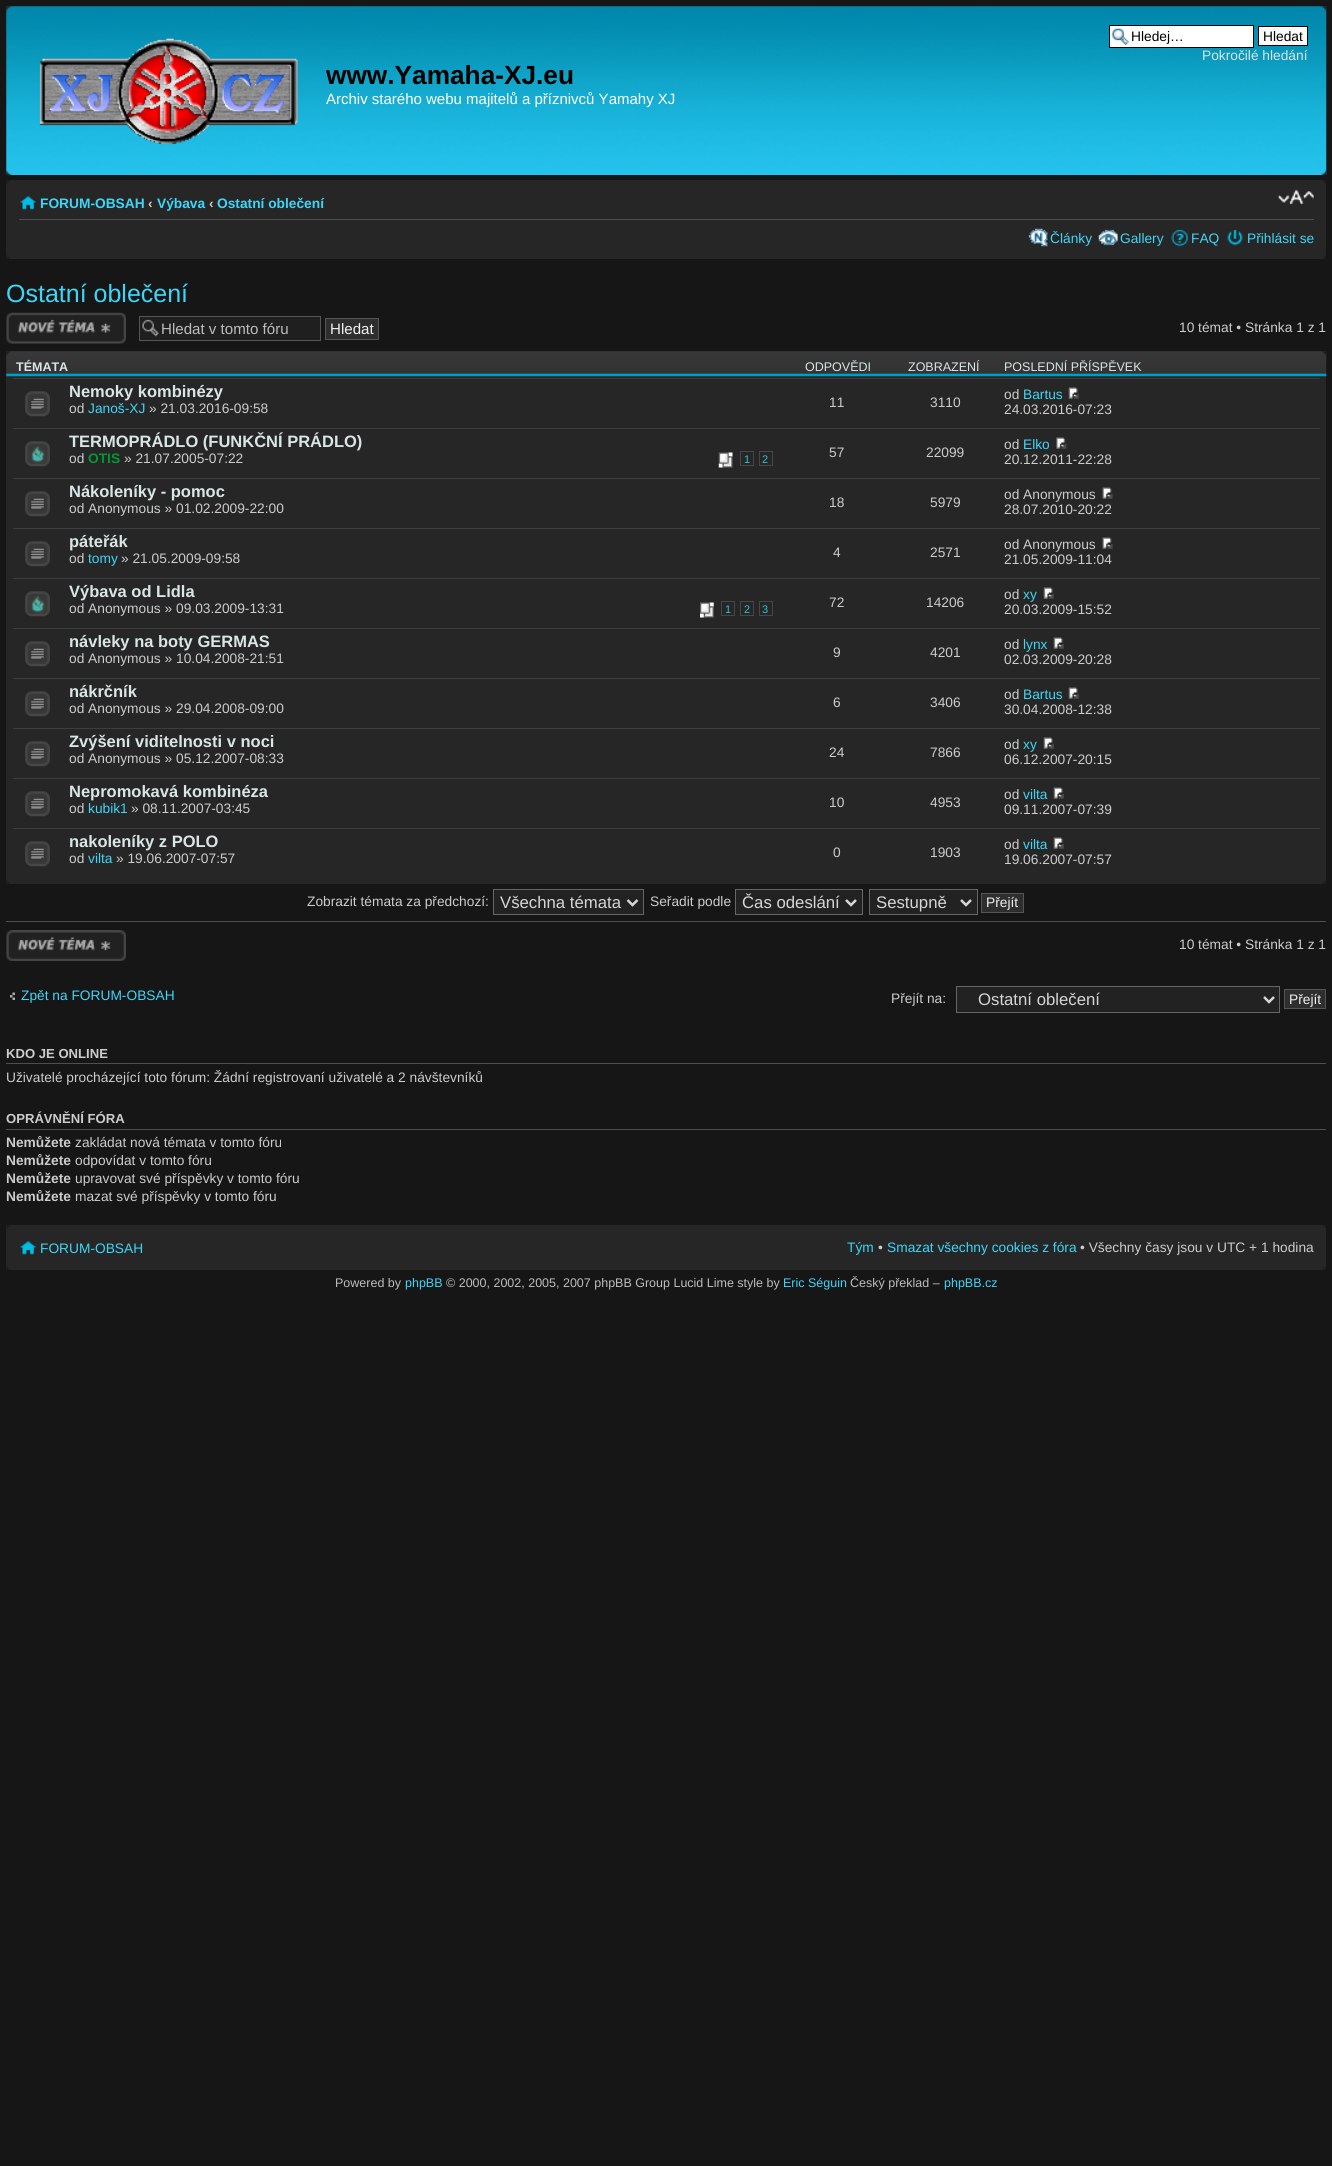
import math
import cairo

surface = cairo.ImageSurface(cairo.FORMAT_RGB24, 1332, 2166)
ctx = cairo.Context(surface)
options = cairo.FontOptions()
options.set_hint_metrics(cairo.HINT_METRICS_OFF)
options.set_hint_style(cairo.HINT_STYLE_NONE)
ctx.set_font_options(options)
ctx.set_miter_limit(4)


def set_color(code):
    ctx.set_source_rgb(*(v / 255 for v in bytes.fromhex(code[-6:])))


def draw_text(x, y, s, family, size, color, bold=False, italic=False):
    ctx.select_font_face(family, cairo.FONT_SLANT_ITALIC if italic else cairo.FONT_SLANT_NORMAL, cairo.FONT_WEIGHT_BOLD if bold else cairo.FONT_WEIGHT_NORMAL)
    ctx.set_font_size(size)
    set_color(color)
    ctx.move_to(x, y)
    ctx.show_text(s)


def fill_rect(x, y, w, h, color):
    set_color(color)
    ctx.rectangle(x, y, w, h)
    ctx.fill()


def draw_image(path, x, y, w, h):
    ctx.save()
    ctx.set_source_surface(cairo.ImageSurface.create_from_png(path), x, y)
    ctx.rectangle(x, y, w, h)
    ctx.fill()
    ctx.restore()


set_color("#161616")
ctx.paint()
draw_image("assets/img1.png", 6, 6, 1321, 169)
draw_image("assets/img2.png", 6, 6, 6, 6)
draw_image("assets/img3.png", 1320, 6, 7, 6)
fill_rect(1110, 26, 143, 21, "#ffffff")
draw_image("assets/img4.png", 1111, 28, 18, 17)
ctx.rectangle(1109.5, 25.5, 144, 22)
set_color("#000000")
ctx.set_line_width(1)
ctx.stroke()
draw_text(1131, 41, "Hledej…", "Liberation Sans", 13.75, "#000000")
set_color("#fafafa")
ctx.rectangle(1258.5, 26.5, 49, 19)
ctx.fill_preserve()
set_color("#000000")
ctx.stroke()
draw_text(1263, 41, "Hledat", "Liberation Sans", 13.75, "#000000")
draw_text(1202, 60, "Pokročilé hledání", "Liberation Sans", 13.75, "#dae5e6")
draw_image("assets/img5.png", 39, 38, 259, 106)
draw_text(326, 84, "www.Yamaha-XJ.eu", "Liberation Sans", 26.25, "#000000", bold=True)
draw_text(326, 104, "Archiv starého webu majitelů a příznivců Yamahy XJ", "Liberation Sans", 15, "#ffffff")
draw_image("assets/img6.png", 6, 169, 7, 6)
draw_image("assets/img7.png", 1320, 169, 7, 6)
fill_rect(6, 180, 1320, 79, "#262626")
draw_image("assets/img8.png", 6, 180, 5, 4)
draw_image("assets/img9.png", 1322, 180, 4, 4)
fill_rect(19, 219, 1295, 1, "#4f4f4f")
draw_image("assets/img10.png", 20, 196, 17, 14)
draw_text(40, 208, "FORUM-OBSAH", "Liberation Sans", 13.75, "#3ed5f7", bold=True)
draw_text(148, 208, "‹", "Liberation Sans", 13.75, "#cccccc", bold=True)
draw_text(157, 208, "Výbava", "Liberation Sans", 13.75, "#3ed5f7", bold=True)
draw_text(209, 208, "‹", "Liberation Sans", 13.75, "#cccccc", bold=True)
draw_text(217, 208, "Ostatní oblečení", "Liberation Sans", 13.75, "#3ed5f7", bold=True)
draw_image("assets/img11.png", 1277, 189, 37, 16)
draw_image("assets/img12.png", 1028, 228, 20, 19)
draw_text(1050, 243, "Články", "Liberation Sans", 13.75, "#3ed5f7")
draw_image("assets/img13.png", 1098, 229, 20, 17)
draw_text(1120, 243, "Gallery", "Liberation Sans", 13.75, "#3ed5f7")
draw_image("assets/img14.png", 1171, 229, 18, 18)
draw_text(1191, 243, "FAQ", "Liberation Sans", 13.75, "#3ed5f7")
draw_image("assets/img15.png", 1227, 229, 16, 17)
draw_text(1247, 243, "Přihlásit se", "Liberation Sans", 13.75, "#3ed5f7")
draw_image("assets/img16.png", 6, 255, 4, 4)
draw_image("assets/img17.png", 1322, 255, 4, 4)
draw_text(6, 302, "Ostatní oblečení", "Liberation Sans", 25, "#3ed5f7")
draw_image("assets/img18.png", 6, 312, 120, 32)
fill_rect(140, 317, 180, 23, "#1f1f1f")
draw_image("assets/img19.png", 142, 319, 17, 18)
ctx.rectangle(139.5, 316.5, 181, 24)
set_color("#555555")
ctx.stroke()
draw_text(161, 334, "Hledat v tomto fóru", "Liberation Sans", 15.1, "#bdbdbd")
set_color("#2e2e2e")
ctx.rectangle(325.5, 318.5, 53, 21)
ctx.fill_preserve()
set_color("#555555")
ctx.stroke()
draw_text(330, 334, "Hledat", "Liberation Sans", 15.1, "#f0f0f0")
draw_text(1179, 332, "10 témat • Stránka 1 z 1", "Liberation Sans", 13.75, "#cccccc")
fill_rect(6, 351, 1320, 533, "#262626")
draw_image("assets/img20.png", 6, 351, 1321, 26)
draw_image("assets/img21.png", 6, 351, 5, 5)
draw_image("assets/img22.png", 1321, 351, 5, 5)
draw_text(16, 371, "TÉMATA", "Liberation Sans", 12.5, "#dae5e6", bold=True)
draw_text(805, 371, "ODPOVĚDI", "Liberation Sans", 12.5, "#dae5e6")
draw_text(908, 371, "ZOBRAZENÍ", "Liberation Sans", 12.5, "#dae5e6")
draw_text(1004, 371, "POSLEDNÍ PŘÍSPĚVEK", "Liberation Sans", 12.5, "#dae5e6")
fill_rect(13, 378, 1307, 1, "#3d3d3d")
draw_image("assets/img23.png", 25, 391, 25, 26)
draw_text(69, 397, "Nemoky kombinézy", "Liberation Sans", 16.5, "#dae5e6", bold=True)
draw_text(69, 413, "od", "Liberation Sans", 13.75, "#cccccc")
draw_text(88, 413, "Janoš-XJ", "Liberation Sans", 13.75, "#3ed5f7")
draw_text(149, 413, "» 21.03.2016-09:58", "Liberation Sans", 13.75, "#cccccc")
draw_text(829, 407, "11", "Liberation Sans", 13.75, "#cccccc")
draw_text(930, 407, "3110", "Liberation Sans", 13.75, "#cccccc")
draw_text(1004, 399, "od", "Liberation Sans", 13.75, "#cccccc")
draw_text(1023, 399, "Bartus", "Liberation Sans", 13.75, "#3ed5f7")
draw_image("assets/img24.png", 1068, 387, 11, 12)
draw_text(1004, 414, "24.03.2016-07:23", "Liberation Sans", 13.75, "#cccccc")
fill_rect(13, 428, 1307, 1, "#3d3d3d")
draw_image("assets/img25.png", 25, 441, 25, 26)
draw_text(69, 447, "TERMOPRÁDLO (FUNKČNÍ PRÁDLO)", "Liberation Sans", 16.5, "#dae5e6", bold=True)
draw_text(69, 463, "od", "Liberation Sans", 13.75, "#cccccc")
draw_text(88, 463, "OTIS", "Liberation Sans", 13.75, "#009933", bold=True)
draw_text(124, 463, "» 21.07.2005-07:22", "Liberation Sans", 13.75, "#cccccc")
draw_image("assets/img26.png", 718, 452, 15, 16)
ctx.rectangle(740.5, 451.5, 13, 14)
set_color("#474747")
ctx.stroke()
draw_text(744, 463, "1", "Liberation Sans", 11, "#2bc5d6")
ctx.rectangle(759.5, 451.5, 13, 14)
set_color("#474747")
ctx.stroke()
draw_text(762, 463, "2", "Liberation Sans", 11, "#2bc5d6")
draw_text(829, 457, "57", "Liberation Sans", 13.75, "#cccccc")
draw_text(926, 457, "22099", "Liberation Sans", 13.75, "#cccccc")
draw_text(1004, 449, "od", "Liberation Sans", 13.75, "#cccccc")
draw_text(1023, 449, "Elko", "Liberation Sans", 13.75, "#3ed5f7")
draw_image("assets/img27.png", 1056, 437, 11, 12)
draw_text(1004, 464, "20.12.2011-22:28", "Liberation Sans", 13.75, "#cccccc")
fill_rect(13, 478, 1307, 1, "#3d3d3d")
draw_image("assets/img23.png", 25, 491, 25, 26)
draw_text(69, 497, "Nákoleníky - pomoc", "Liberation Sans", 16.5, "#dae5e6", bold=True)
draw_text(69, 513, "od Anonymous » 01.02.2009-22:00", "Liberation Sans", 13.75, "#cccccc")
draw_text(829, 507, "18", "Liberation Sans", 13.75, "#cccccc")
draw_text(930, 507, "5979", "Liberation Sans", 13.75, "#cccccc")
draw_text(1004, 499, "od Anonymous", "Liberation Sans", 13.75, "#cccccc")
draw_image("assets/img28.png", 1102, 487, 11, 12)
draw_text(1004, 514, "28.07.2010-20:22", "Liberation Sans", 13.75, "#cccccc")
fill_rect(13, 528, 1307, 1, "#3d3d3d")
draw_image("assets/img23.png", 25, 541, 25, 26)
draw_text(69, 547, "páteřák", "Liberation Sans", 16.5, "#dae5e6", bold=True)
draw_text(69, 563, "od", "Liberation Sans", 13.75, "#cccccc")
draw_text(88, 563, "tomy", "Liberation Sans", 13.75, "#3ed5f7")
draw_text(121, 563, "» 21.05.2009-09:58", "Liberation Sans", 13.75, "#cccccc")
draw_text(833, 557, "4", "Liberation Sans", 13.75, "#cccccc")
draw_text(930, 557, "2571", "Liberation Sans", 13.75, "#cccccc")
draw_text(1004, 549, "od Anonymous", "Liberation Sans", 13.75, "#cccccc")
draw_image("assets/img28.png", 1102, 537, 11, 12)
draw_text(1004, 564, "21.05.2009-11:04", "Liberation Sans", 13.75, "#cccccc")
fill_rect(13, 578, 1307, 1, "#3d3d3d")
draw_image("assets/img29.png", 25, 591, 25, 26)
draw_text(69, 597, "Výbava od Lidla", "Liberation Sans", 16.5, "#dae5e6", bold=True)
draw_text(69, 613, "od Anonymous » 09.03.2009-13:31", "Liberation Sans", 13.75, "#cccccc")
draw_image("assets/img30.png", 700, 602, 14, 16)
ctx.rectangle(721.5, 601.5, 13, 14)
set_color("#474747")
ctx.stroke()
draw_text(725, 613, "1", "Liberation Sans", 11, "#2bc5d6")
ctx.rectangle(740.5, 601.5, 13, 14)
set_color("#474747")
ctx.stroke()
draw_text(744, 613, "2", "Liberation Sans", 11, "#2bc5d6")
ctx.rectangle(759.5, 601.5, 13, 14)
set_color("#474747")
ctx.stroke()
draw_text(762, 613, "3", "Liberation Sans", 11, "#2bc5d6")
draw_text(829, 607, "72", "Liberation Sans", 13.75, "#cccccc")
draw_text(926, 607, "14206", "Liberation Sans", 13.75, "#cccccc")
draw_text(1004, 599, "od", "Liberation Sans", 13.75, "#cccccc")
draw_text(1023, 599, "xy", "Liberation Sans", 13.75, "#3ed5f7")
draw_image("assets/img31.png", 1043, 587, 11, 12)
draw_text(1004, 614, "20.03.2009-15:52", "Liberation Sans", 13.75, "#cccccc")
fill_rect(13, 628, 1307, 1, "#3d3d3d")
draw_image("assets/img23.png", 25, 641, 25, 26)
draw_text(69, 647, "návleky na boty GERMAS", "Liberation Sans", 16.5, "#dae5e6", bold=True)
draw_text(69, 663, "od Anonymous » 10.04.2008-21:51", "Liberation Sans", 13.75, "#cccccc")
draw_text(833, 657, "9", "Liberation Sans", 13.75, "#cccccc")
draw_text(930, 657, "4201", "Liberation Sans", 13.75, "#cccccc")
draw_text(1004, 649, "od", "Liberation Sans", 13.75, "#cccccc")
draw_text(1023, 649, "lynx", "Liberation Sans", 13.75, "#3ed5f7")
draw_image("assets/img24.png", 1053, 637, 11, 12)
draw_text(1004, 664, "02.03.2009-20:28", "Liberation Sans", 13.75, "#cccccc")
fill_rect(13, 678, 1307, 1, "#3d3d3d")
draw_image("assets/img23.png", 25, 691, 25, 26)
draw_text(69, 697, "nákrčník", "Liberation Sans", 16.5, "#dae5e6", bold=True)
draw_text(69, 713, "od Anonymous » 29.04.2008-09:00", "Liberation Sans", 13.75, "#cccccc")
draw_text(833, 707, "6", "Liberation Sans", 13.75, "#cccccc")
draw_text(930, 707, "3406", "Liberation Sans", 13.75, "#cccccc")
draw_text(1004, 699, "od", "Liberation Sans", 13.75, "#cccccc")
draw_text(1023, 699, "Bartus", "Liberation Sans", 13.75, "#3ed5f7")
draw_image("assets/img24.png", 1068, 687, 11, 12)
draw_text(1004, 714, "30.04.2008-12:38", "Liberation Sans", 13.75, "#cccccc")
fill_rect(13, 728, 1307, 1, "#3d3d3d")
draw_image("assets/img23.png", 25, 741, 25, 26)
draw_text(69, 747, "Zvýšení viditelnosti v noci", "Liberation Sans", 16.5, "#dae5e6", bold=True)
draw_text(69, 763, "od Anonymous » 05.12.2007-08:33", "Liberation Sans", 13.75, "#cccccc")
draw_text(829, 757, "24", "Liberation Sans", 13.75, "#cccccc")
draw_text(930, 757, "7866", "Liberation Sans", 13.75, "#cccccc")
draw_text(1004, 749, "od", "Liberation Sans", 13.75, "#cccccc")
draw_text(1023, 749, "xy", "Liberation Sans", 13.75, "#3ed5f7")
draw_image("assets/img24.png", 1043, 737, 11, 12)
draw_text(1004, 764, "06.12.2007-20:15", "Liberation Sans", 13.75, "#cccccc")
fill_rect(13, 778, 1307, 1, "#3d3d3d")
draw_image("assets/img23.png", 25, 791, 25, 26)
draw_text(69, 797, "Nepromokavá kombinéza", "Liberation Sans", 16.5, "#dae5e6", bold=True)
draw_text(69, 813, "od", "Liberation Sans", 13.75, "#cccccc")
draw_text(88, 813, "kubik1", "Liberation Sans", 13.75, "#3ed5f7")
draw_text(131, 813, "» 08.11.2007-03:45", "Liberation Sans", 13.75, "#cccccc")
draw_text(829, 807, "10", "Liberation Sans", 13.75, "#cccccc")
draw_text(930, 807, "4953", "Liberation Sans", 13.75, "#cccccc")
draw_text(1004, 799, "od", "Liberation Sans", 13.75, "#cccccc")
draw_text(1023, 799, "vilta", "Liberation Sans", 13.75, "#3ed5f7")
draw_image("assets/img24.png", 1053, 787, 11, 12)
draw_text(1004, 814, "09.11.2007-07:39", "Liberation Sans", 13.75, "#cccccc")
fill_rect(13, 828, 1307, 1, "#3d3d3d")
draw_image("assets/img23.png", 25, 841, 25, 26)
draw_text(69, 847, "nakoleníky z POLO", "Liberation Sans", 16.5, "#dae5e6", bold=True)
draw_text(69, 863, "od", "Liberation Sans", 13.75, "#cccccc")
draw_text(88, 863, "vilta", "Liberation Sans", 13.75, "#3ed5f7")
draw_text(116, 863, "» 19.06.2007-07:57", "Liberation Sans", 13.75, "#cccccc")
draw_text(833, 857, "0", "Liberation Sans", 13.75, "#cccccc")
draw_text(930, 857, "1903", "Liberation Sans", 13.75, "#cccccc")
draw_text(1004, 849, "od", "Liberation Sans", 13.75, "#cccccc")
draw_text(1023, 849, "vilta", "Liberation Sans", 13.75, "#3ed5f7")
draw_image("assets/img24.png", 1053, 837, 11, 12)
draw_text(1004, 864, "19.06.2007-07:57", "Liberation Sans", 13.75, "#cccccc")
draw_image("assets/img16.png", 6, 880, 4, 4)
draw_image("assets/img17.png", 1322, 880, 4, 4)
draw_text(307, 906, "Zobrazit témata za předchozí:", "Liberation Sans", 13.75, "#cccccc")
set_color("#222222")
ctx.rectangle(493.5, 889.5, 150, 25)
ctx.fill_preserve()
set_color("#666666")
ctx.stroke()
ctx.new_path()
ctx.move_to(627.5, 900)
ctx.line_to(632.5, 905)
ctx.line_to(637.5, 900)
set_color("#d6d6d6")
ctx.set_line_width(2.5)
ctx.stroke()
draw_text(500, 908, "Všechna témata", "Liberation Sans", 16.75, "#d6d6d6")
draw_text(650, 906, "Seřadit podle", "Liberation Sans", 13.75, "#cccccc")
set_color("#222222")
ctx.rectangle(735.5, 889.5, 127, 25)
ctx.fill_preserve()
set_color("#666666")
ctx.set_line_width(1)
ctx.stroke()
ctx.new_path()
ctx.move_to(846, 900)
ctx.line_to(851, 905)
ctx.line_to(856, 900)
set_color("#d6d6d6")
ctx.set_line_width(2.5)
ctx.stroke()
draw_text(742, 908, "Čas odeslání", "Liberation Sans", 16.75, "#d6d6d6")
set_color("#222222")
ctx.rectangle(869.5, 889.5, 108, 25)
ctx.fill_preserve()
set_color("#666666")
ctx.set_line_width(1)
ctx.stroke()
ctx.new_path()
ctx.move_to(961, 900)
ctx.line_to(966, 905)
ctx.line_to(971, 900)
set_color("#d6d6d6")
ctx.set_line_width(2.5)
ctx.stroke()
draw_text(876, 908, "Sestupně", "Liberation Sans", 16.75, "#d6d6d6")
set_color("#2e2e2e")
ctx.rectangle(981.5, 893.5, 42, 19)
ctx.fill_preserve()
set_color("#555555")
ctx.set_line_width(1)
ctx.stroke()
draw_text(986, 907, "Přejít", "Liberation Sans", 13.75, "#f0f0f0")
fill_rect(6, 921, 1320, 1, "#4f4f4f")
draw_image("assets/img32.png", 6, 930, 120, 31)
draw_text(1179, 949, "10 témat • Stránka 1 z 1", "Liberation Sans", 13.75, "#cccccc")
draw_image("assets/img33.png", 10, 992, 5, 8)
draw_text(21, 1000, "Zpět na FORUM-OBSAH", "Liberation Sans", 13.75, "#3ed5f7")
draw_text(891, 1003, "Přejít na:", "Liberation Sans", 13.75, "#cccccc")
set_color("#222222")
ctx.rectangle(956.5, 986.5, 323, 26)
ctx.fill_preserve()
set_color("#666666")
ctx.stroke()
ctx.new_path()
ctx.move_to(1264, 997)
ctx.line_to(1269, 1002)
ctx.line_to(1274, 997)
set_color("#d6d6d6")
ctx.set_line_width(2.5)
ctx.stroke()
draw_text(978, 1005, "Ostatní oblečení", "Liberation Sans", 16.75, "#d6d6d6")
set_color("#2e2e2e")
ctx.rectangle(1284.5, 989.5, 41, 19)
ctx.fill_preserve()
set_color("#555555")
ctx.set_line_width(1)
ctx.stroke()
draw_text(1289, 1004, "Přejít", "Liberation Sans", 13.75, "#f0f0f0")
fill_rect(6, 1063, 1320, 1, "#4f4f4f")
draw_text(6, 1058, "KDO JE ONLINE", "Liberation Sans", 13.1, "#cccccc", bold=True)
draw_text(6, 1082, "Uživatelé procházející toto fórum: Žádní registrovaní uživatelé a 2 návštevníků", "Liberation Sans", 13.75, "#cccccc")
fill_rect(6, 1129, 1320, 1, "#4f4f4f")
draw_text(6, 1123, "OPRÁVNĚNÍ FÓRA", "Liberation Sans", 13.1, "#cccccc", bold=True)
draw_text(6, 1147, "Nemůžete", "Liberation Sans", 13.75, "#cccccc", bold=True)
draw_text(75, 1147, "zakládat nová témata v tomto fóru", "Liberation Sans", 13.75, "#cccccc")
draw_text(6, 1165, "Nemůžete", "Liberation Sans", 13.75, "#cccccc", bold=True)
draw_text(75, 1165, "odpovídat v tomto fóru", "Liberation Sans", 13.75, "#cccccc")
draw_text(6, 1183, "Nemůžete", "Liberation Sans", 13.75, "#cccccc", bold=True)
draw_text(75, 1183, "upravovat své příspěvky v tomto fóru", "Liberation Sans", 13.75, "#cccccc")
draw_text(6, 1201, "Nemůžete", "Liberation Sans", 13.75, "#cccccc", bold=True)
draw_text(75, 1201, "mazat své příspěvky v tomto fóru", "Liberation Sans", 13.75, "#cccccc")
fill_rect(6, 1225, 1320, 45, "#262626")
draw_image("assets/img8.png", 6, 1225, 5, 4)
draw_image("assets/img9.png", 1322, 1225, 4, 4)
draw_image("assets/img10.png", 20, 1241, 17, 14)
draw_text(40, 1253, "FORUM-OBSAH", "Liberation Sans", 13.75, "#3ed5f7")
draw_text(847, 1252, "Tým", "Liberation Sans", 13.75, "#3ed5f7")
draw_text(878, 1252, "•", "Liberation Sans", 13.75, "#cccccc")
draw_text(887, 1252, "Smazat všechny cookies z fóra", "Liberation Sans", 13.75, "#3ed5f7")
draw_text(1080, 1252, "• Všechny časy jsou v UTC + 1 hodina", "Liberation Sans", 13.75, "#cccccc")
draw_image("assets/img34.png", 6, 1266, 5, 4)
draw_image("assets/img35.png", 1322, 1266, 4, 4)
draw_text(335, 1287, "Powered by", "Liberation Sans", 12.5, "#bdbdbd")
draw_text(405, 1287, "phpBB", "Liberation Sans", 12.5, "#3ed5f7")
draw_text(446, 1287, "© 2000, 2002, 2005, 2007 phpBB Group Lucid Lime style by", "Liberation Sans", 12.5, "#bdbdbd")
draw_text(783, 1287, "Eric Séguin", "Liberation Sans", 12.5, "#3ed5f7")
draw_text(850, 1287, "Český překlad –", "Liberation Sans", 12.5, "#bdbdbd")
draw_text(944, 1287, "phpBB.cz", "Liberation Sans", 12.5, "#3ed5f7")
surface.write_to_png("output.png")
